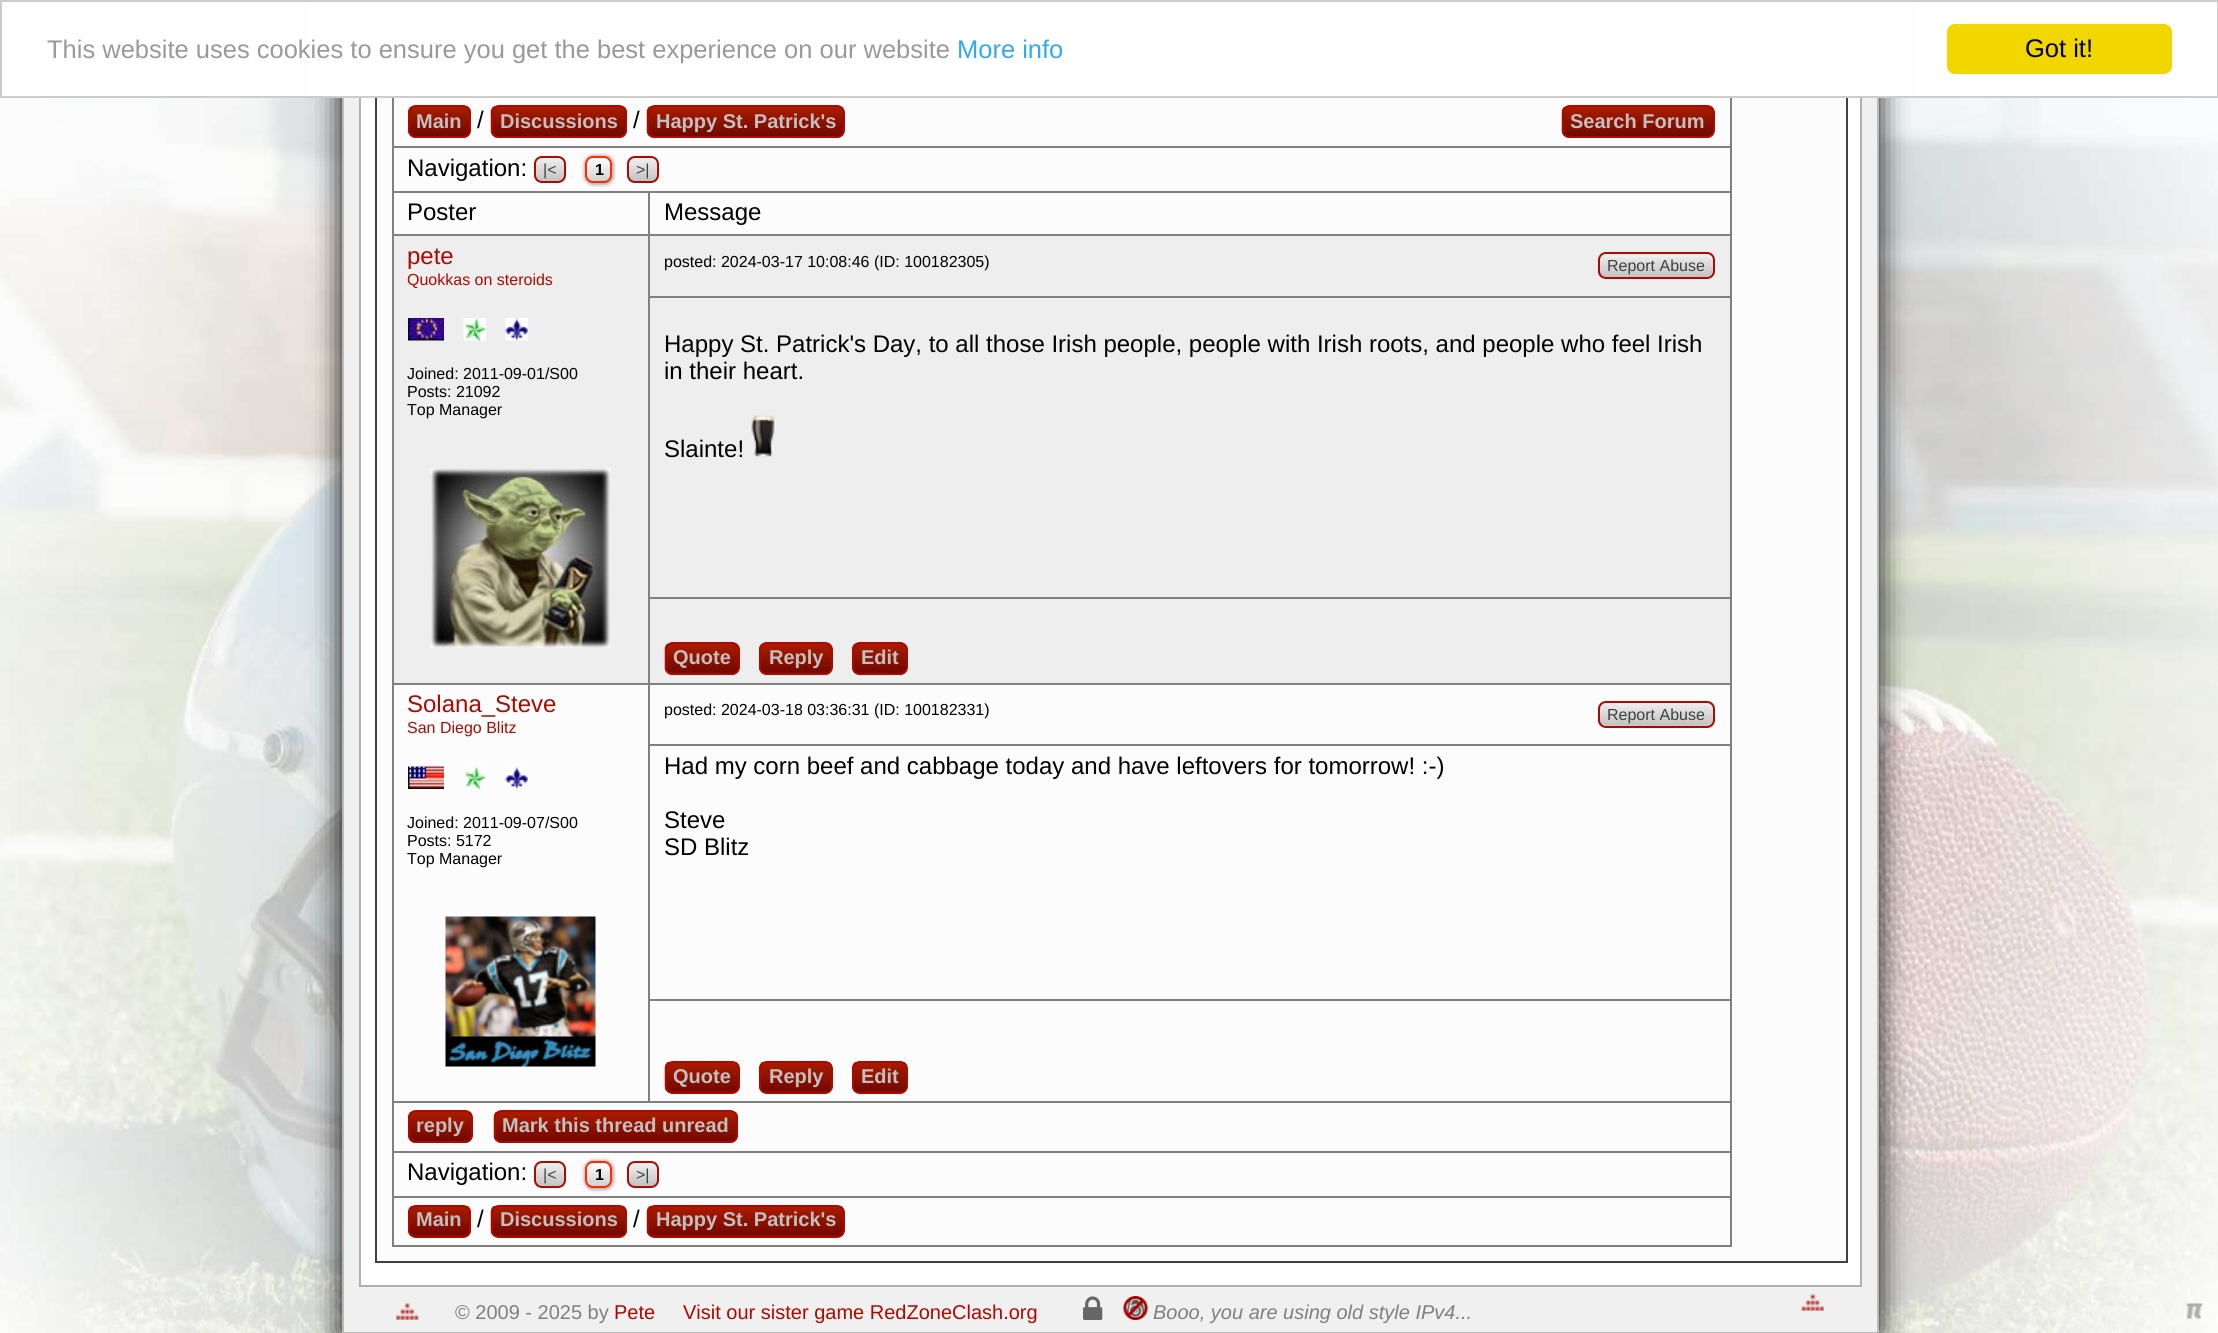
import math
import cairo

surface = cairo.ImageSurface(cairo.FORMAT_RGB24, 2218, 1333)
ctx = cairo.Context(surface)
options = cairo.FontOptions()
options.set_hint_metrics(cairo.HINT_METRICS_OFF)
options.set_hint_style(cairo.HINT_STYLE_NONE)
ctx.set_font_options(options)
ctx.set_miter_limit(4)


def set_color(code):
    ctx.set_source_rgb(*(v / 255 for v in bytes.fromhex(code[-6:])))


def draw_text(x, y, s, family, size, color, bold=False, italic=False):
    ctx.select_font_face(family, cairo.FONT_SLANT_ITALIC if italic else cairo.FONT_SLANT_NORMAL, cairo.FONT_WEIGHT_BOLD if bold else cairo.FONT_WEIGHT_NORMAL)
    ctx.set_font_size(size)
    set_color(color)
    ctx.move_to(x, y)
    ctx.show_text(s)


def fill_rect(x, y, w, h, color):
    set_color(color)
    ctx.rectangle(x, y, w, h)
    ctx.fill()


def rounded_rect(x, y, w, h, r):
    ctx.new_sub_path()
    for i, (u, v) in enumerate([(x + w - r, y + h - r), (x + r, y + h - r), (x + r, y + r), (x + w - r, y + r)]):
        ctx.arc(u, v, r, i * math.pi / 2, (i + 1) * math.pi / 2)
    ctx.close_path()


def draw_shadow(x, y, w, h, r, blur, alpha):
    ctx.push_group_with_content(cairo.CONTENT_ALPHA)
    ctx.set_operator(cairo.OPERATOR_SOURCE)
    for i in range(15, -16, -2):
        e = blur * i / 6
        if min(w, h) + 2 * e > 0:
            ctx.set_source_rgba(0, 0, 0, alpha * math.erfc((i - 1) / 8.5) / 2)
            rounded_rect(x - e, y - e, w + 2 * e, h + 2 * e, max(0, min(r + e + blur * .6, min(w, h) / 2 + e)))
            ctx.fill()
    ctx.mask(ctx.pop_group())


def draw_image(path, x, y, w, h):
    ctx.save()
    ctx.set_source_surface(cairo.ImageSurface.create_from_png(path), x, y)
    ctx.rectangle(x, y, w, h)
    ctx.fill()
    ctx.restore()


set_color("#ffffff")
ctx.paint()
draw_image("assets/img1.png", 0, 98, 2218, 1235)
set_color("#000000")
draw_shadow(342, -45, 1536, 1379, 0, 15, 1)
fill_rect(344, 98, 1533, 1234, "#f0f0f0")
fill_rect(361, 98, 1499, 1187, "#ffffff")
ctx.rectangle(360, -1, 1501, 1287)
set_color("#b0b0b0")
ctx.stroke()
fill_rect(377, 98, 1469, 1163, "#fcfcfc")
ctx.rectangle(376, 81, 1471, 1181)
set_color("#404040")
ctx.stroke()
fill_rect(307, 2, 1606, 94, "#ffffff")
fill_rect(1730, 96, 2, 1151, "#808080")
fill_rect(392, 1245, 1339, 2, "#808080")
fill_rect(392, 96, 2, 1151, "#808080")
ctx.rectangle(1, 1, 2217, 96)
set_color("#cccccc")
ctx.stroke()
draw_text(47, 58, "This website uses cookies to ensure you get the best experience on our website", "Liberation Sans", 25.5, "#999999")
draw_text(957, 58, "More info", "Liberation Sans", 25.5, "#31a8f0")
set_color("#f1d600")
rounded_rect(1947, 24, 225, 50, 8)
ctx.fill()
draw_text(2025, 57, "Got it!", "Liberation Sans", 25.5, "#000000")
fill_rect(1877, 98, 2, 1235, "#b9b9b9")
fill_rect(342, 1332, 1536, 1, "#b9b9b9")
fill_rect(342, 98, 2, 1235, "#b9b9b9")
draw_image("assets/img2.png", 408, 106, 63, 32)
rounded_rect(409, 106, 61, 31, 7)
set_color("#aa0a00")
ctx.stroke()
draw_text(416, 128, "Main", "Liberation Sans", 20, "#c0c0c0", bold=True)
draw_text(477, 128, "/", "Liberation Sans", 24, "#000000")
draw_image("assets/img3.png", 490, 106, 137, 32)
rounded_rect(492, 106, 134, 31, 7)
set_color("#aa0a00")
ctx.stroke()
draw_text(500, 128, "Discussions", "Liberation Sans", 20, "#c0c0c0", bold=True)
draw_text(633, 128, "/", "Liberation Sans", 24, "#000000")
draw_image("assets/img4.png", 646, 106, 199, 32)
rounded_rect(648, 106, 196, 31, 7)
set_color("#aa0a00")
ctx.stroke()
draw_text(656, 128, "Happy St. Patrick's", "Liberation Sans", 20, "#c0c0c0", bold=True)
draw_image("assets/img5.png", 1561, 106, 154, 32)
rounded_rect(1563, 106, 151, 31, 7)
set_color("#aa0a00")
ctx.stroke()
draw_text(1570, 128, "Search Forum", "Liberation Sans", 20, "#c0c0c0", bold=True)
fill_rect(392, 146, 1339, 2, "#808080")
draw_text(407, 176, "Navigation:", "Liberation Sans", 24, "#000000")
draw_image("assets/img6.png", 534, 157, 32, 25)
rounded_rect(535, 157, 30, 25, 7)
set_color("#aa0a00")
ctx.stroke()
draw_text(543, 175, "|<", "Liberation Sans", 16, "#404040")
set_color("#b0b0b0")
draw_shadow(584, 155, 30, 30, 9, 1.5, 1)
draw_image("assets/img7.png", 585, 156, 27, 26)
rounded_rect(586, 157, 25, 25, 7)
set_color("#ff2a00")
ctx.stroke()
draw_text(595, 175, "1", "Liberation Sans", 16, "#000000", bold=True)
draw_image("assets/img6.png", 627, 157, 32, 25)
rounded_rect(628, 157, 30, 25, 7)
set_color("#aa0a00")
ctx.stroke()
draw_text(636, 175, ">|", "Liberation Sans", 16, "#404040")
fill_rect(648, 191, 1083, 2, "#808080")
fill_rect(648, 234, 1083, 2, "#808080")
fill_rect(394, 236, 1336, 447, "#eeeeee")
fill_rect(648, 296, 1083, 2, "#808080")
fill_rect(648, 597, 1083, 2, "#808080")
fill_rect(648, 683, 1083, 2, "#808080")
fill_rect(648, 744, 1083, 2, "#808080")
fill_rect(648, 999, 1083, 2, "#808080")
fill_rect(392, 1101, 1339, 2, "#808080")
fill_rect(648, 999, 2, 104, "#808080")
fill_rect(648, 744, 2, 257, "#808080")
fill_rect(648, 683, 2, 63, "#808080")
fill_rect(392, 683, 258, 2, "#808080")
fill_rect(648, 597, 2, 87, "#808080")
fill_rect(648, 296, 2, 303, "#808080")
fill_rect(648, 234, 2, 63, "#808080")
fill_rect(392, 234, 258, 2, "#808080")
fill_rect(648, 191, 2, 45, "#808080")
fill_rect(392, 191, 258, 2, "#808080")
draw_text(407, 220, "Poster", "Liberation Sans", 24, "#000000")
draw_text(664, 220, "Message", "Liberation Sans", 24, "#000000")
draw_text(407, 264, "pete", "Liberation Sans", 24, "#aa0a00")
draw_text(407, 285, "Quokkas on steroids", "Liberation Sans", 16, "#aa0a00")
draw_image("assets/img8.png", 408, 318, 36, 23)
draw_image("assets/img9.png", 463, 318, 23, 23)
draw_image("assets/img10.png", 505, 318, 23, 23)
draw_text(407, 379, "Joined: 2011-09-01/S00", "Liberation Sans", 16, "#000000")
draw_text(407, 397, "Posts: 21092", "Liberation Sans", 16, "#000000")
draw_text(407, 415, "Top Manager", "Liberation Sans", 16, "#000000")
draw_image("assets/img11.png", 430, 468, 181, 180)
draw_text(664, 267, "posted: 2024-03-17 10:08:46 (ID: 100182305)", "Liberation Sans", 16, "#000000")
draw_image("assets/img12.png", 1597, 257, 118, 22)
rounded_rect(1599, 253, 115, 25, 7)
set_color("#aa0a00")
ctx.stroke()
draw_text(1607, 271, "Report Abuse", "Liberation Sans", 16, "#404040")
draw_text(664, 352, "Happy St. Patrick's Day, to all those Irish people, people with Irish roots, and people who feel Irish", "Liberation Sans", 24, "#000000")
draw_text(664, 379, "in their heart.", "Liberation Sans", 24, "#000000")
draw_text(664, 457, "Slainte!", "Liberation Sans", 24, "#000000")
draw_image("assets/img13.png", 751, 414, 24, 44)
draw_image("assets/img14.png", 664, 643, 76, 32)
rounded_rect(666, 643, 73, 31, 7)
set_color("#aa0a00")
ctx.stroke()
draw_text(673, 664, "Quote", "Liberation Sans", 20, "#c0c0c0", bold=True)
draw_image("assets/img15.png", 759, 643, 74, 32)
rounded_rect(760, 643, 72, 31, 7)
set_color("#aa0a00")
ctx.stroke()
draw_text(769, 664, "Reply", "Liberation Sans", 20, "#c0c0c0", bold=True)
draw_image("assets/img16.png", 852, 643, 56, 32)
rounded_rect(853, 643, 54, 31, 7)
set_color("#aa0a00")
ctx.stroke()
draw_text(861, 664, "Edit", "Liberation Sans", 20, "#c0c0c0", bold=True)
draw_text(407, 712, "Solana_Steve", "Liberation Sans", 24, "#aa0a00")
draw_text(407, 733, "San Diego Blitz", "Liberation Sans", 16, "#aa0a00")
draw_image("assets/img17.png", 408, 766, 36, 23)
draw_image("assets/img18.png", 464, 766, 22, 23)
draw_image("assets/img19.png", 505, 766, 23, 23)
draw_text(407, 828, "Joined: 2011-09-07/S00", "Liberation Sans", 16, "#000000")
draw_text(407, 846, "Posts: 5172", "Liberation Sans", 16, "#000000")
draw_text(407, 864, "Top Manager", "Liberation Sans", 16, "#000000")
draw_image("assets/img20.png", 445, 916, 151, 151)
draw_text(664, 715, "posted: 2024-03-18 03:36:31 (ID: 100182331)", "Liberation Sans", 16, "#000000")
draw_image("assets/img21.png", 1597, 702, 118, 25)
rounded_rect(1599, 702, 115, 25, 7)
set_color("#aa0a00")
ctx.stroke()
draw_text(1607, 720, "Report Abuse", "Liberation Sans", 16, "#404040")
draw_text(664, 774, "Had my corn beef and cabbage today and have leftovers for tomorrow! :-)", "Liberation Sans", 24, "#000000")
draw_text(664, 828, "Steve", "Liberation Sans", 24, "#000000")
draw_text(664, 855, "SD Blitz", "Liberation Sans", 24, "#000000")
draw_image("assets/img22.png", 664, 1062, 76, 32)
rounded_rect(666, 1062, 73, 31, 7)
set_color("#aa0a00")
ctx.stroke()
draw_text(673, 1083, "Quote", "Liberation Sans", 20, "#c0c0c0", bold=True)
draw_image("assets/img23.png", 759, 1062, 74, 32)
rounded_rect(760, 1062, 72, 31, 7)
set_color("#aa0a00")
ctx.stroke()
draw_text(769, 1083, "Reply", "Liberation Sans", 20, "#c0c0c0", bold=True)
draw_image("assets/img24.png", 852, 1062, 56, 32)
rounded_rect(853, 1062, 54, 31, 7)
set_color("#aa0a00")
ctx.stroke()
draw_text(861, 1083, "Edit", "Liberation Sans", 20, "#c0c0c0", bold=True)
draw_image("assets/img25.png", 408, 1111, 65, 32)
rounded_rect(409, 1111, 63, 31, 7)
set_color("#aa0a00")
ctx.stroke()
draw_text(416, 1132, "reply", "Liberation Sans", 20, "#c0c0c0", bold=True)
draw_image("assets/img26.png", 493, 1111, 245, 32)
rounded_rect(495, 1111, 242, 31, 7)
set_color("#aa0a00")
ctx.stroke()
draw_text(502, 1132, "Mark this thread unread", "Liberation Sans", 20, "#c0c0c0", bold=True)
fill_rect(392, 1151, 1339, 2, "#808080")
draw_text(407, 1180, "Navigation:", "Liberation Sans", 24, "#000000")
draw_image("assets/img27.png", 534, 1162, 32, 25)
rounded_rect(535, 1162, 30, 25, 7)
set_color("#aa0a00")
ctx.stroke()
draw_text(543, 1180, "|<", "Liberation Sans", 16, "#404040")
set_color("#b0b0b0")
draw_shadow(584, 1160, 30, 30, 9, 1.5, 1)
draw_image("assets/img28.png", 585, 1161, 27, 26)
rounded_rect(586, 1162, 25, 25, 7)
set_color("#ff2a00")
ctx.stroke()
draw_text(595, 1180, "1", "Liberation Sans", 16, "#000000", bold=True)
draw_image("assets/img27.png", 627, 1162, 32, 25)
rounded_rect(628, 1162, 30, 25, 7)
set_color("#aa0a00")
ctx.stroke()
draw_text(636, 1180, ">|", "Liberation Sans", 16, "#404040")
fill_rect(392, 1196, 1339, 2, "#808080")
draw_image("assets/img29.png", 408, 1206, 63, 32)
rounded_rect(409, 1206, 61, 31, 7)
set_color("#aa0a00")
ctx.stroke()
draw_text(416, 1226, "Main", "Liberation Sans", 20, "#c0c0c0", bold=True)
draw_text(477, 1227, "/", "Liberation Sans", 24, "#000000")
draw_image("assets/img30.png", 490, 1206, 137, 32)
rounded_rect(492, 1206, 134, 31, 7)
set_color("#aa0a00")
ctx.stroke()
draw_text(500, 1226, "Discussions", "Liberation Sans", 20, "#c0c0c0", bold=True)
draw_text(633, 1227, "/", "Liberation Sans", 24, "#000000")
draw_image("assets/img31.png", 646, 1206, 199, 32)
rounded_rect(648, 1206, 196, 31, 7)
set_color("#aa0a00")
ctx.stroke()
draw_text(656, 1226, "Happy St. Patrick's", "Liberation Sans", 20, "#c0c0c0", bold=True)
draw_image("assets/img32.png", 396, 1303, 23, 17)
draw_text(455, 1319, "© 2009 - 2025 by", "Liberation Sans", 20, "#808080")
draw_text(614, 1319, "Pete", "Liberation Sans", 20, "#aa0a00")
draw_text(683, 1319, "Visit our sister game RedZoneClash.org", "Liberation Sans", 20, "#aa0a00")
draw_image("assets/img33.png", 1083, 1296, 20, 24)
draw_image("assets/img34.png", 1123, 1296, 25, 24)
draw_text(1153, 1319, "Booo, you are using old style IPv4...", "Liberation Sans", 20, "#808080", italic=True)
draw_image("assets/img35.png", 1801, 1294, 23, 17)
draw_image("assets/img36.png", 2187, 1303, 16, 16)
surface.write_to_png("output.png")
